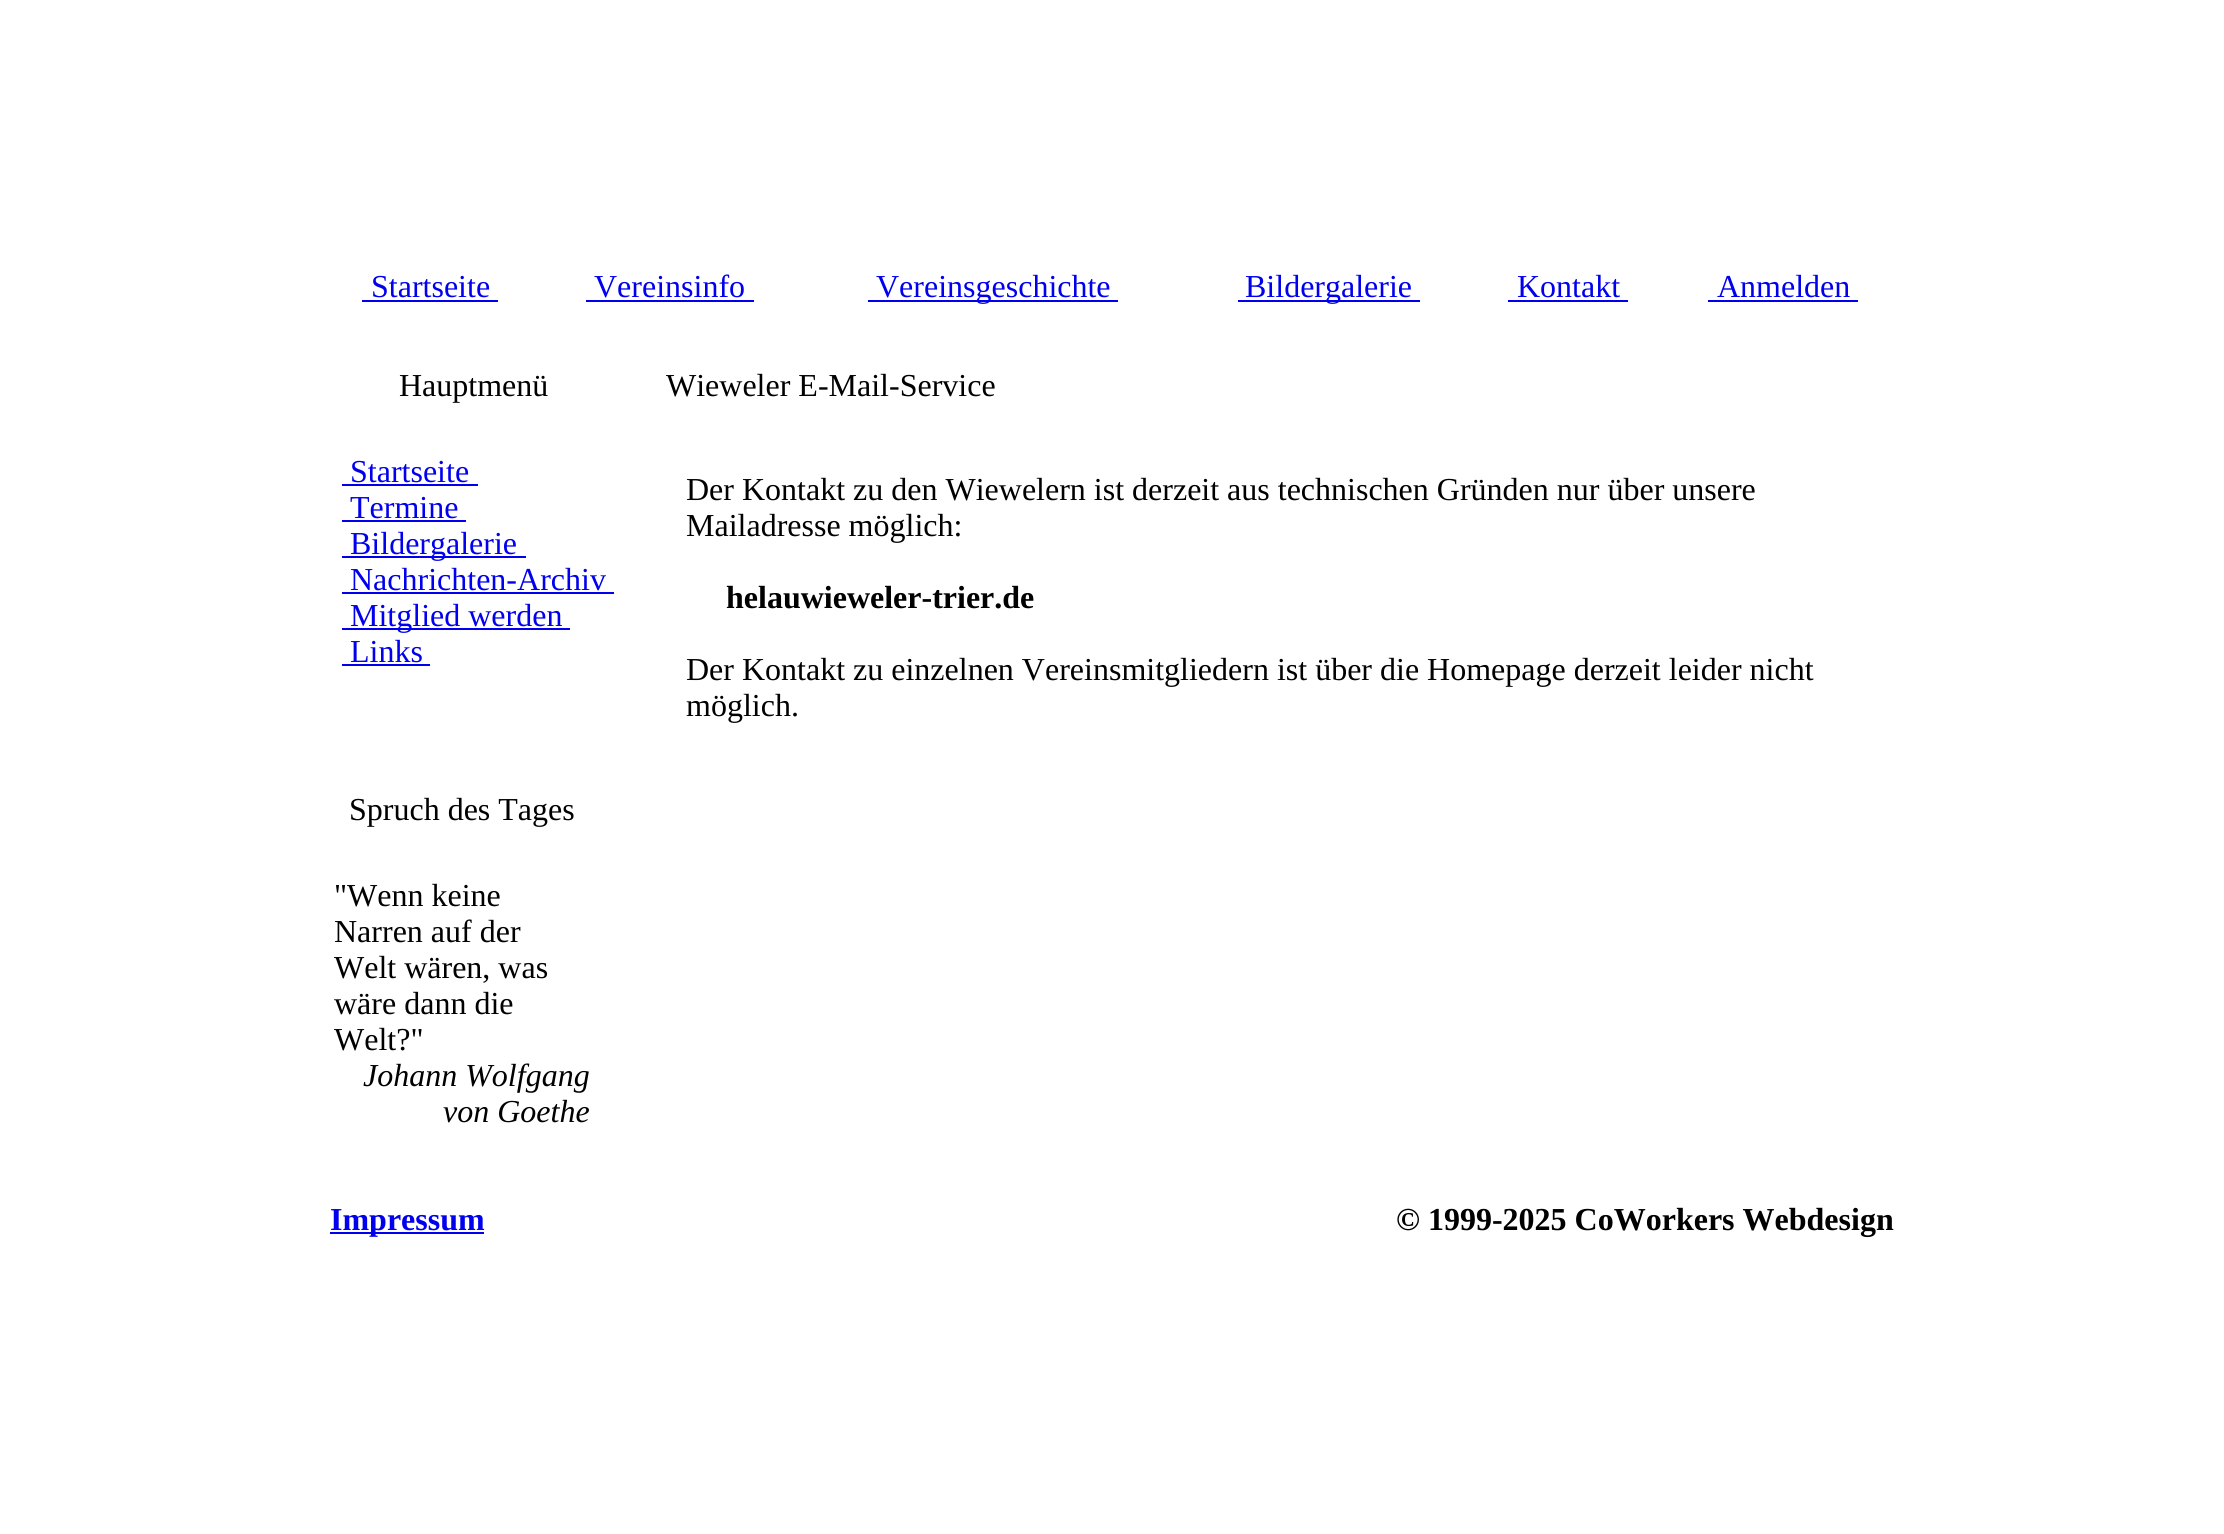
import math
import cairo

surface = cairo.ImageSurface(cairo.FORMAT_RGB24, 2224, 1534)
ctx = cairo.Context(surface)
options = cairo.FontOptions()
options.set_hint_metrics(cairo.HINT_METRICS_OFF)
options.set_hint_style(cairo.HINT_STYLE_NONE)
ctx.set_font_options(options)
ctx.set_miter_limit(4)


def set_color(code):
    ctx.set_source_rgb(*(v / 255 for v in bytes.fromhex(code[-6:])))


def draw_text(x, y, s, family, size, color, bold=False, italic=False):
    ctx.select_font_face(family, cairo.FONT_SLANT_ITALIC if italic else cairo.FONT_SLANT_NORMAL, cairo.FONT_WEIGHT_BOLD if bold else cairo.FONT_WEIGHT_NORMAL)
    ctx.set_font_size(size)
    set_color(color)
    ctx.move_to(x, y)
    ctx.show_text(s)


def fill_rect(x, y, w, h, color):
    set_color(color)
    ctx.rectangle(x, y, w, h)
    ctx.fill()


set_color("#ffffff")
ctx.paint()
draw_text(371, 297, "Startseite", "Liberation Serif", 32, "#0000ee")
fill_rect(362, 300, 136, 2, "#0000ee")
draw_text(594, 297, "Vereinsinfo", "Liberation Serif", 32, "#0000ee")
fill_rect(586, 300, 168, 2, "#0000ee")
fill_rect(868, 300, 250, 2, "#0000ee")
draw_text(876, 297, "Vereinsgeschichte", "Liberation Serif", 32, "#0000ee")
fill_rect(1238, 300, 182, 2, "#0000ee")
draw_text(1245, 297, "Bildergalerie", "Liberation Serif", 32, "#0000ee")
draw_text(1517, 297, "Kontakt", "Liberation Serif", 32, "#0000ee")
fill_rect(1508, 300, 120, 2, "#0000ee")
draw_text(1717, 297, "Anmelden", "Liberation Serif", 32, "#0000ee")
fill_rect(1708, 300, 150, 2, "#0000ee")
draw_text(399, 396, "Hauptmenü", "Liberation Serif", 32, "#000000")
draw_text(350, 482, "Startseite", "Liberation Serif", 32, "#0000ee")
fill_rect(342, 484, 136, 2, "#0000ee")
draw_text(350, 518, "Termine", "Liberation Serif", 32, "#0000ee")
fill_rect(342, 520, 124, 2, "#0000ee")
fill_rect(342, 556, 184, 2, "#0000ee")
draw_text(350, 554, "Bildergalerie", "Liberation Serif", 32, "#0000ee")
draw_text(350, 590, "Nachrichten-Archiv", "Liberation Serif", 32, "#0000ee")
fill_rect(342, 592, 272, 2, "#0000ee")
fill_rect(342, 628, 228, 2, "#0000ee")
draw_text(350, 626, "Mitglied werden", "Liberation Serif", 32, "#0000ee")
draw_text(350, 662, "Links", "Liberation Serif", 32, "#0000ee")
fill_rect(342, 664, 88, 2, "#0000ee")
draw_text(349, 820, "Spruch des Tages", "Liberation Serif", 32, "#000000")
draw_text(334, 906, "\"Wenn keine", "Liberation Serif", 32, "#000000")
draw_text(334, 942, "Narren auf der", "Liberation Serif", 32, "#000000")
draw_text(334, 978, "Welt wären, was", "Liberation Serif", 32, "#000000")
draw_text(334, 1014, "wäre dann die", "Liberation Serif", 32, "#000000")
draw_text(334, 1050, "Welt?\"", "Liberation Serif", 32, "#000000")
draw_text(363, 1086, "Johann Wolfgang", "Liberation Serif", 32, "#000000", italic=True)
draw_text(443, 1122, "von Goethe", "Liberation Serif", 32, "#000000", italic=True)
draw_text(666, 396, "Wieweler E-Mail-Service", "Liberation Serif", 32, "#000000")
draw_text(686, 500, "Der Kontakt zu den Wiewelern ist derzeit aus technischen Gründen nur über unsere", "Liberation Serif", 32, "#000000")
draw_text(686, 536, "Mailadresse möglich:", "Liberation Serif", 32, "#000000")
draw_text(726, 608, "helauwieweler-trier.de", "Liberation Serif", 32, "#000000", bold=True)
draw_text(686, 680, "Der Kontakt zu einzelnen Vereinsmitgliedern ist über die Homepage derzeit leider nicht", "Liberation Serif", 32, "#000000")
draw_text(686, 716, "möglich.", "Liberation Serif", 32, "#000000")
fill_rect(330, 1232, 154, 2, "#0000ee")
draw_text(330, 1230, "Impressum", "Liberation Serif", 32, "#0000ee", bold=True)
draw_text(1396, 1230, "© 1999-2025 CoWorkers Webdesign", "Liberation Serif", 32, "#000000", bold=True)
surface.write_to_png("output.png")
